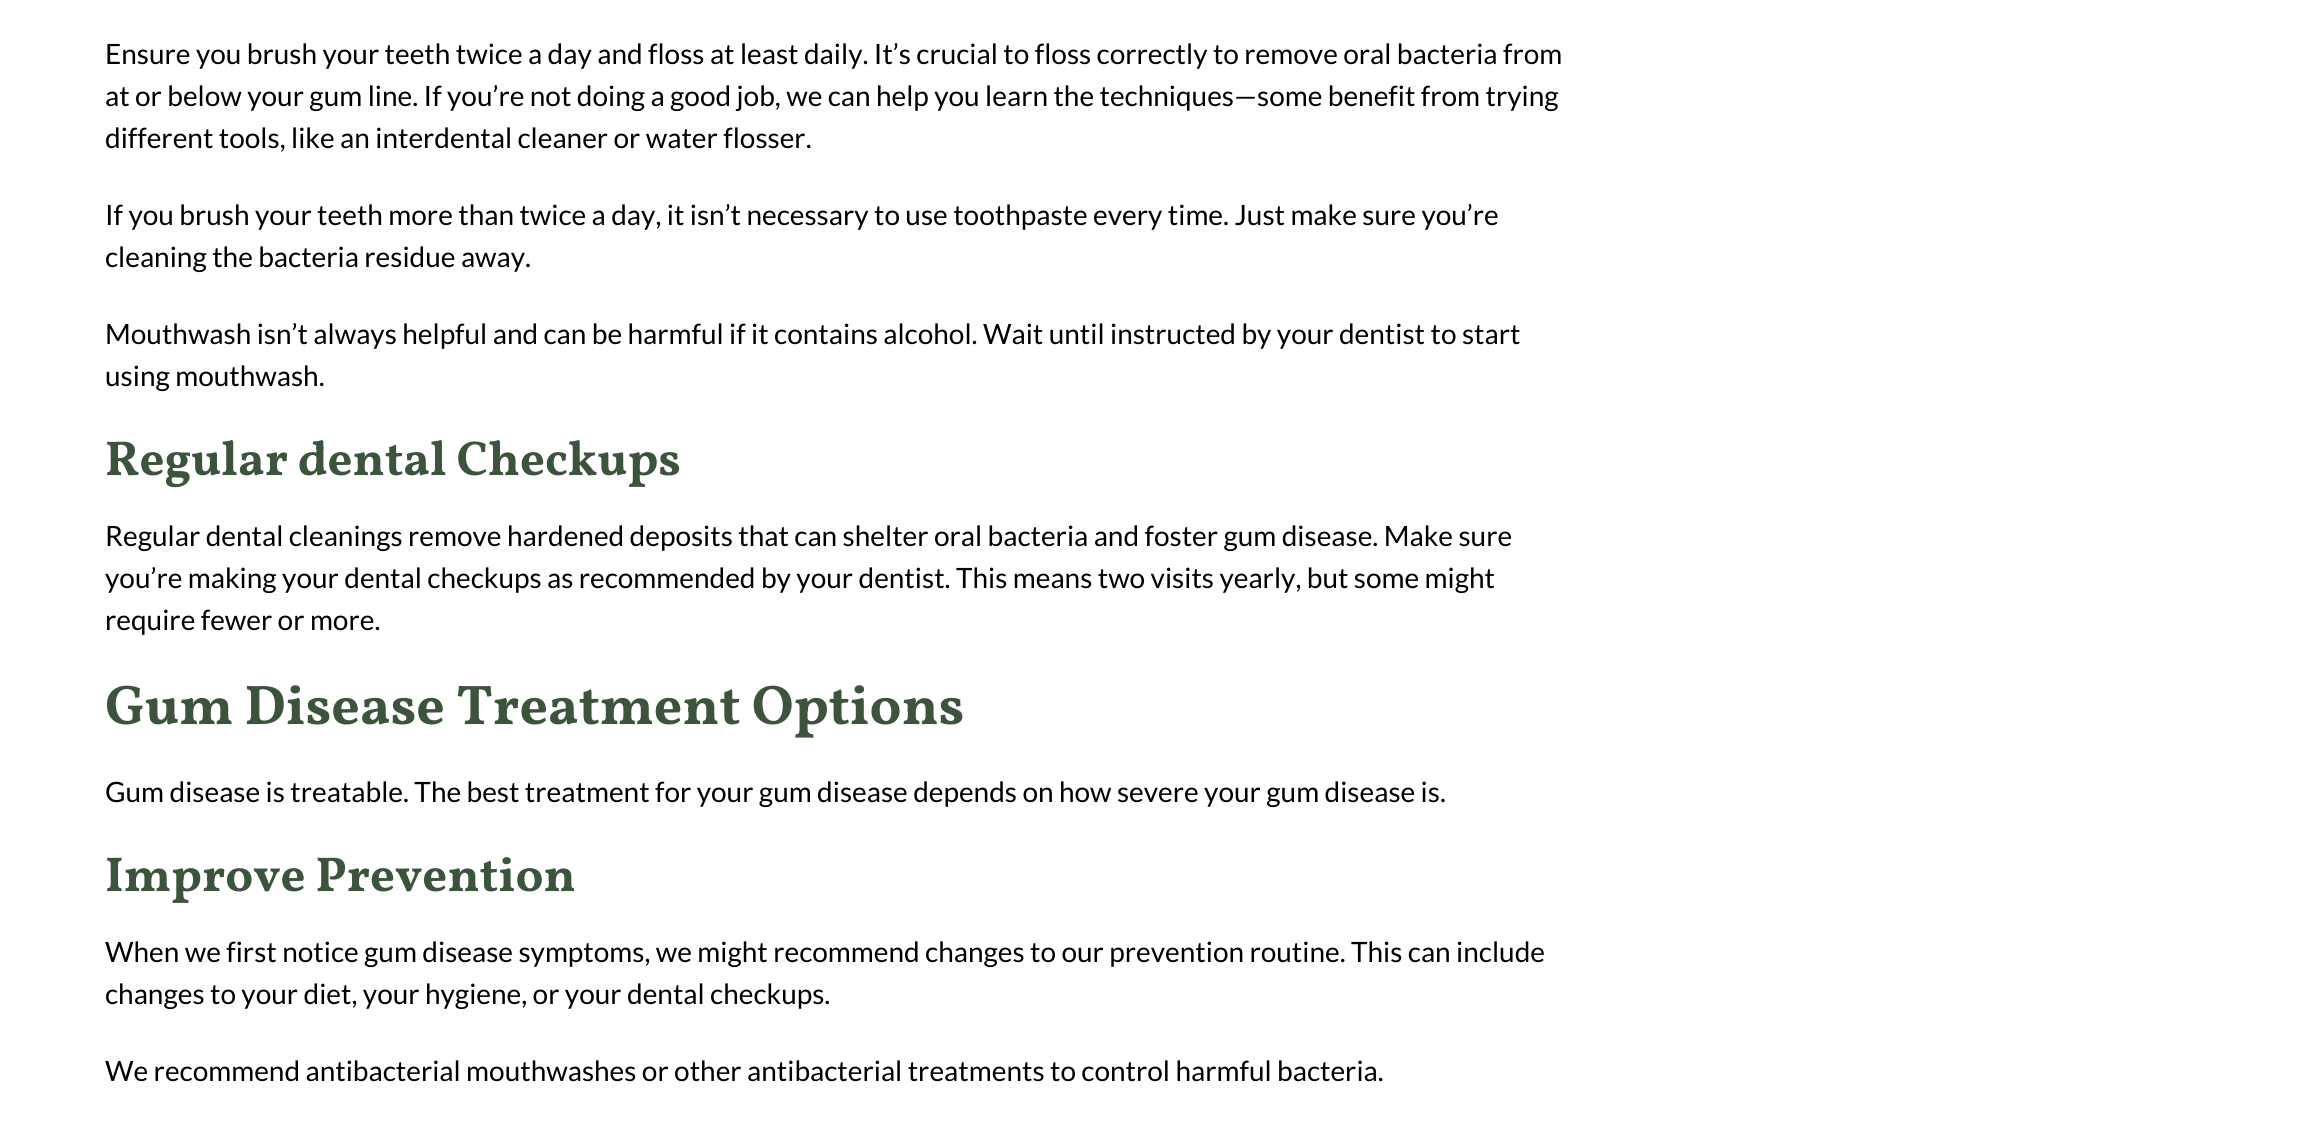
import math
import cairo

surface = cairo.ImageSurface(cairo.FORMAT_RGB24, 2309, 1140)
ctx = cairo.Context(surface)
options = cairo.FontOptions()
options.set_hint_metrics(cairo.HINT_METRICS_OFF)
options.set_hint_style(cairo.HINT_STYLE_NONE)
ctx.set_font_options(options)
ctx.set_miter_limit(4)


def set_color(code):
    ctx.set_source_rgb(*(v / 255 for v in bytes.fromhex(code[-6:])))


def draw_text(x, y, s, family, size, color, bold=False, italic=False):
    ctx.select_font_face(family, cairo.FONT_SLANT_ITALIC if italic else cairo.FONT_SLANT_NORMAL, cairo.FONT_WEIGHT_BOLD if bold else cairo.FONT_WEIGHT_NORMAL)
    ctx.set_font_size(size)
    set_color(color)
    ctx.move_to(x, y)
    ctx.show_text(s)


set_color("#ffffff")
ctx.paint()
draw_text(105, 64, "Ensure you brush your teeth twice a day and floss at least daily. It’s crucial to floss correctly to remove oral bacteria from", "Lato", 28, "#000000")
draw_text(105, 106, "at or below your gum line. If you’re not doing a good job, we can help you learn the techniques—some benefit from trying", "Lato", 28, "#000000")
draw_text(105, 148, "different tools, like an interdental cleaner or water flosser.", "Lato", 28, "#000000")
draw_text(105, 225, "If you brush your teeth more than twice a day, it isn’t necessary to use toothpaste every time. Just make sure you’re", "Lato", 28, "#000000")
draw_text(105, 267, "cleaning the bacteria residue away.", "Lato", 28, "#000000")
draw_text(105, 344, "Mouthwash isn’t always helpful and can be harmful if it contains alcohol. Wait until instructed by your dentist to start", "Lato", 28, "#000000")
draw_text(105, 386, "using mouthwash.", "Lato", 28, "#000000")
draw_text(105, 475, "Regular dental Checkups", "Vollkorn", 49, "#3c533c", bold=True)
draw_text(105, 546, "Regular dental cleanings remove hardened deposits that can shelter oral bacteria and foster gum disease. Make sure", "Lato", 28, "#000000")
draw_text(105, 588, "you’re making your dental checkups as recommended by your dentist. This means two visits yearly, but some might", "Lato", 28, "#000000")
draw_text(105, 630, "require fewer or more.", "Lato", 28, "#000000")
draw_text(105, 724, "Gum Disease Treatment Options", "Vollkorn", 56, "#3c533c", bold=True)
draw_text(105, 802, "Gum disease is treatable. The best treatment for your gum disease depends on how severe your gum disease is.", "Lato", 28, "#000000")
draw_text(105, 891, "Improve Prevention", "Vollkorn", 49, "#3c533c", bold=True)
draw_text(105, 962, "When we first notice gum disease symptoms, we might recommend changes to our prevention routine. This can include", "Lato", 28, "#000000")
draw_text(105, 1004, "changes to your diet, your hygiene, or your dental checkups.", "Lato", 28, "#000000")
draw_text(105, 1081, "We recommend antibacterial mouthwashes or other antibacterial treatments to control harmful bacteria.", "Lato", 28, "#000000")
surface.write_to_png("output.png")
